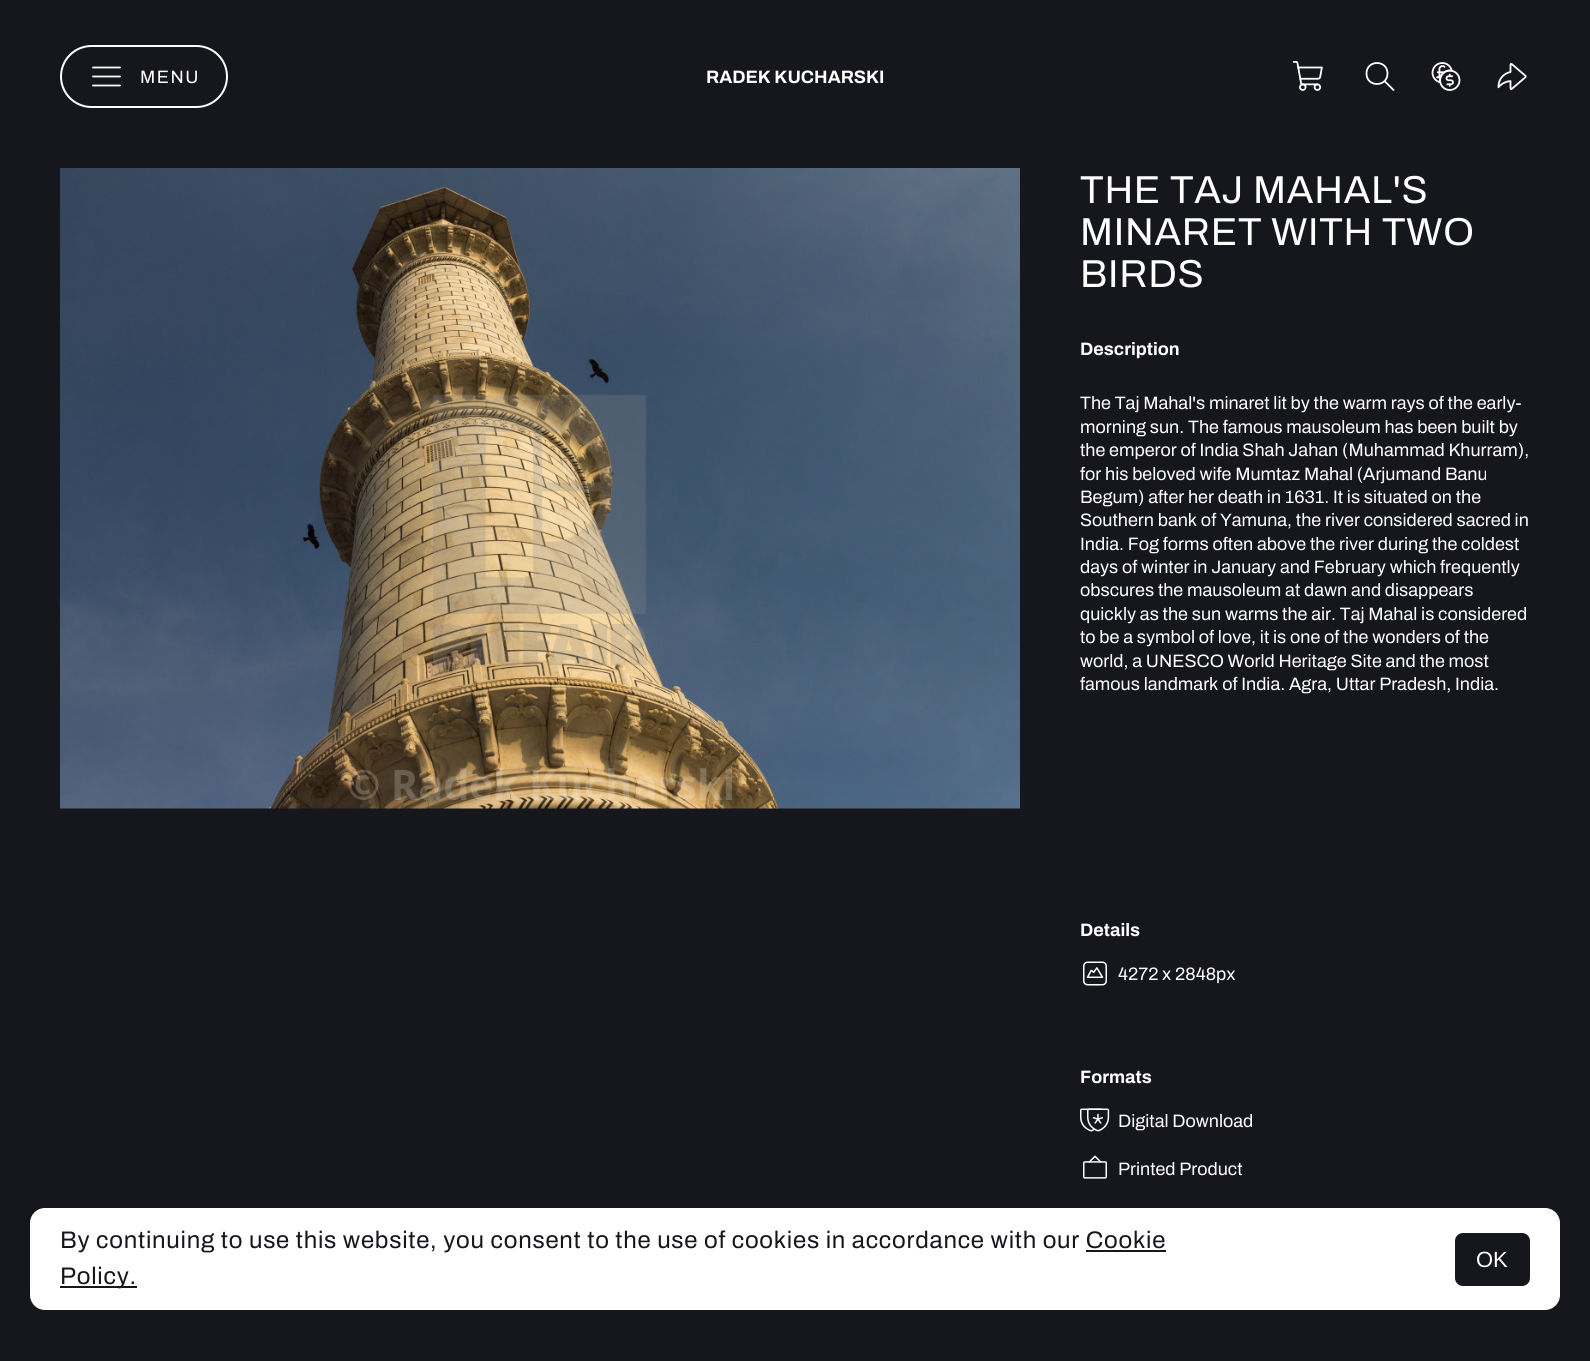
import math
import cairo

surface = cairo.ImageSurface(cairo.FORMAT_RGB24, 1590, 1361)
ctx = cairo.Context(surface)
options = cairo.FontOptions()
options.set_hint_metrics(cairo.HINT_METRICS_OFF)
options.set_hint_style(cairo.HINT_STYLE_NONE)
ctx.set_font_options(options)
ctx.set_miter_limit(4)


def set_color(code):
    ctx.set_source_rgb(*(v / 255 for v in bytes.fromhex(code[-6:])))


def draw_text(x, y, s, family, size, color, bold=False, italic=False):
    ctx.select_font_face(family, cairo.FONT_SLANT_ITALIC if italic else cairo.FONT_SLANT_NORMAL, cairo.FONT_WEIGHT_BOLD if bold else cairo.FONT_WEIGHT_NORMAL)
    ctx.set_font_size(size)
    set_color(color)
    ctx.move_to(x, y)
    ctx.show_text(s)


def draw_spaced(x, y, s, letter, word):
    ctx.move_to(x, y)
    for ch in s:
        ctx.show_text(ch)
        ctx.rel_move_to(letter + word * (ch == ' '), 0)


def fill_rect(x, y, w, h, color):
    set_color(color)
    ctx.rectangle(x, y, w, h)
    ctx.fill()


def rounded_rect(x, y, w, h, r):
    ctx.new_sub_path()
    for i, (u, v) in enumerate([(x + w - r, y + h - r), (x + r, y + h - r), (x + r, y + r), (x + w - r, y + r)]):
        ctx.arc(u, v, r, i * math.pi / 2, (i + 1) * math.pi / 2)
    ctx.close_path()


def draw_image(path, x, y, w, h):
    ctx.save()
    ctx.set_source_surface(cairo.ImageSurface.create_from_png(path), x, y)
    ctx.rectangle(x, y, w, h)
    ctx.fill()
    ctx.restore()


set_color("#16161d")
ctx.paint()
rounded_rect(61, 46, 166, 61, 30.5)
set_color("#ffffff")
ctx.stroke()
ctx.new_path()
ctx.move_to(93, 76.5)
ctx.line_to(120, 76.5)
ctx.move_to(93, 67.5)
ctx.line_to(120, 67.5)
ctx.move_to(93, 85.5)
ctx.line_to(120, 85.5)
ctx.set_line_width(1.8)
ctx.set_line_cap(cairo.LINE_CAP_ROUND)
ctx.set_line_join(cairo.LINE_JOIN_ROUND)
ctx.stroke()
ctx.select_font_face("Archivo")
ctx.set_font_size(18)
draw_spaced(140, 83, "MENU", 1.5, 0)
draw_text(706, 83, "RADEK KUCHARSKI", "Archivo", 18, "#ffffff", bold=True)
draw_image("assets/img1.png", 1292, 61, 31, 30)
ctx.new_path()
ctx.move_to(1393.5, 90)
ctx.line_to(1384.5, 81)
ctx.move_to(1387.5, 73.5)
ctx.curve_to(1387.5, 87.5, 1366.5, 87.5, 1366.5, 73.5)
ctx.curve_to(1366.5, 59.5, 1387.5, 59.5, 1387.5, 73.5)
ctx.close_path()
ctx.stroke()
draw_image("assets/img2.png", 1431, 62, 30, 29)
draw_image("assets/img3.png", 1497, 63, 30, 27)
draw_image("assets/img4.png", 60, 168, 960, 641)
ctx.select_font_face("Archivo")
ctx.set_font_size(39)
draw_spaced(1080, 203, "THE TAJ MAHAL'S", 0.75, 0)
draw_spaced(1080, 245, "MINARET WITH TWO", 0.75, 0)
draw_spaced(1080, 287, "BIRDS", 0.75, 0)
draw_text(1080, 355, "Description", "Archivo", 18, "#ffffff", bold=True)
draw_text(1080, 409, "The Taj Mahal's minaret lit by the warm rays of the early-", "Archivo", 18, "#ffffff")
draw_text(1080, 433, "morning sun. The famous mausoleum has been built by", "Archivo", 18, "#ffffff")
draw_text(1080, 456, "the emperor of India Shah Jahan (Muhammad Khurram),", "Archivo", 18, "#ffffff")
draw_text(1080, 480, "for his beloved wife Mumtaz Mahal (Arjumand Banu", "Archivo", 18, "#ffffff")
draw_text(1080, 503, "Begum) after her death in 1631. It is situated on the", "Archivo", 18, "#ffffff")
draw_text(1080, 526, "Southern bank of Yamuna, the river considered sacred in", "Archivo", 18, "#ffffff")
draw_text(1080, 550, "India. Fog forms often above the river during the coldest", "Archivo", 18, "#ffffff")
draw_text(1080, 573, "days of winter in January and February which frequently", "Archivo", 18, "#ffffff")
draw_text(1080, 596, "obscures the mausoleum at dawn and disappears", "Archivo", 18, "#ffffff")
draw_text(1080, 620, "quickly as the sun warms the air. Taj Mahal is considered", "Archivo", 18, "#ffffff")
draw_text(1080, 643, "to be a symbol of love, it is one of the wonders of the", "Archivo", 18, "#ffffff")
draw_text(1080, 667, "world, a UNESCO World Heritage Site and the most", "Archivo", 18, "#ffffff")
draw_text(1080, 690, "famous landmark of India. Agra, Uttar Pradesh, India.", "Archivo", 18, "#ffffff")
draw_text(1080, 936, "Details", "Archivo", 18, "#ffffff", bold=True)
draw_image("assets/img5.png", 1083, 961, 24, 25)
draw_text(1118, 980, "4272 x 2848px", "Archivo", 18, "#ffffff")
draw_text(1080, 1083, "Formats", "Archivo", 18, "#ffffff", bold=True)
draw_image("assets/img6.png", 1080, 1108, 30, 24)
draw_text(1118, 1127, "Digital Download", "Archivo", 18, "#ffffff")
draw_image("assets/img7.png", 1083, 1155, 24, 24)
draw_text(1118, 1175, "Printed Product", "Archivo", 18, "#ffffff")
rounded_rect(30, 1208, 1530, 102, 15)
ctx.fill()
ctx.set_font_size(24)
set_color("#16161d")
draw_spaced(60, 1248, "By continuing to use this website, you consent to the use of cookies in accordance with our Cookie", 0.75, 0)
fill_rect(60, 1286, 77, 2, "#16161d")
draw_spaced(60, 1284, "Policy.", 0.75, 0)
fill_rect(1086, 1250, 80, 2, "#16161d")
rounded_rect(1455, 1233, 75, 53, 8)
ctx.fill()
draw_text(1476, 1267, "OK", "Liberation Sans", 22, "#ffffff")
surface.write_to_png("output.png")
